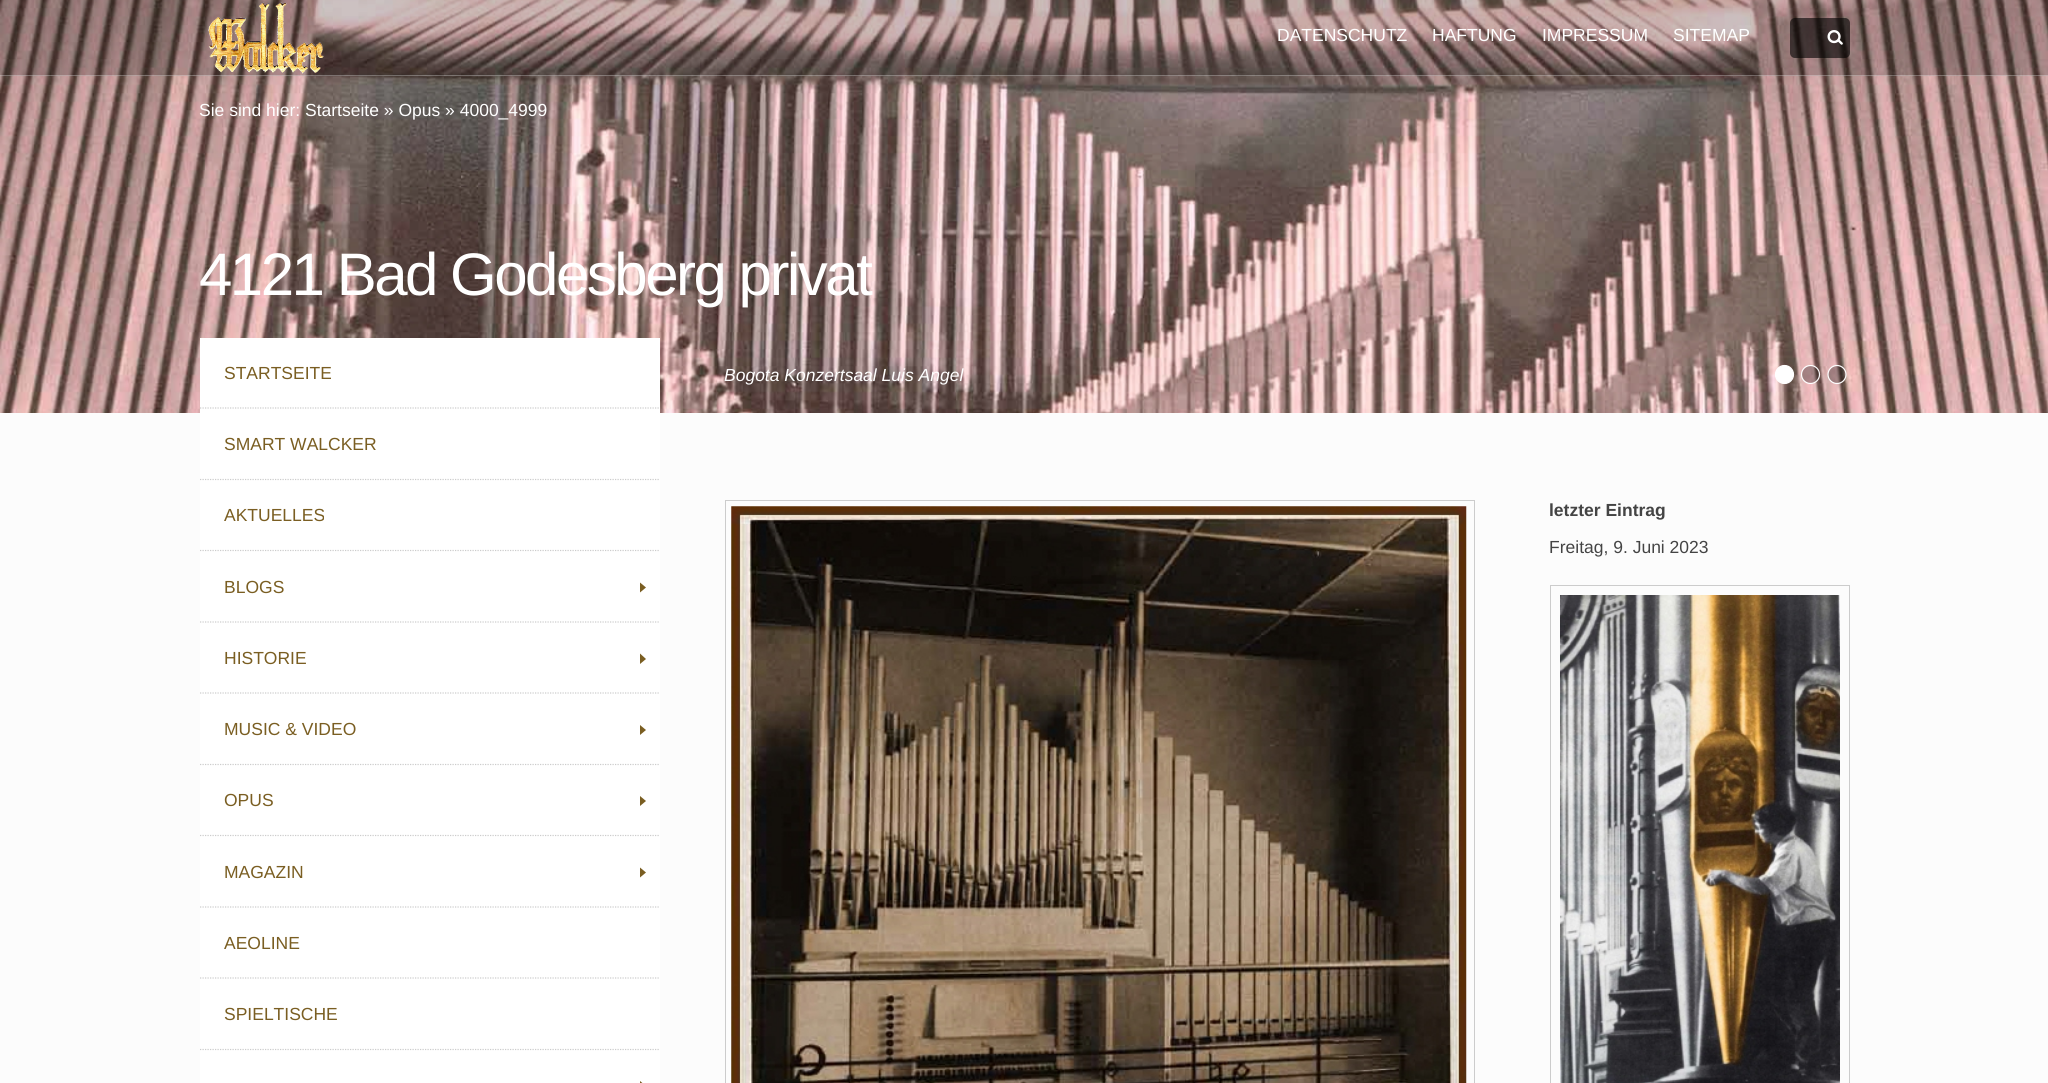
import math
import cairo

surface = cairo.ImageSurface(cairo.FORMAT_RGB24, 2048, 1083)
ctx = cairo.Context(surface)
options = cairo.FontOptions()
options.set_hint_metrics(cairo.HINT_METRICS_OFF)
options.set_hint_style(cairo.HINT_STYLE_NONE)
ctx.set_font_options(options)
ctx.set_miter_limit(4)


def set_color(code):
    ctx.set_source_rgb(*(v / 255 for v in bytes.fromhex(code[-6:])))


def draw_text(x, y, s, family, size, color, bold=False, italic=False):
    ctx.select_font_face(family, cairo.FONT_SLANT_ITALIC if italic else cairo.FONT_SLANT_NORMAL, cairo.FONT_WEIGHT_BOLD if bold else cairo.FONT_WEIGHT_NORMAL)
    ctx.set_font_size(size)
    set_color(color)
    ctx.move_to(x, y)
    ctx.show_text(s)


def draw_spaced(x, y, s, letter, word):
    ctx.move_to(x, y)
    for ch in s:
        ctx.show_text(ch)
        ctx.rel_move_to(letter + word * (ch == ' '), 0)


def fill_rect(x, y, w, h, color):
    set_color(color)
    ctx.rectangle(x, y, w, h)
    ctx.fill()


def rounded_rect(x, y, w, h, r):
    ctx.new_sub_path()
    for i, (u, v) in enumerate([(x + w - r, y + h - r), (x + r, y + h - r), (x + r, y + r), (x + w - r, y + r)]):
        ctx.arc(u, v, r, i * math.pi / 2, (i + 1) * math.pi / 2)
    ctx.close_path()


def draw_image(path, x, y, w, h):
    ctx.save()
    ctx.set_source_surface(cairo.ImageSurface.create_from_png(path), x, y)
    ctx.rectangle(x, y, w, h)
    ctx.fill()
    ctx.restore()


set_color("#fcfcfc")
ctx.paint()
draw_image("assets/img1.png", 0, 0, 2048, 413)
ctx.set_source_rgba(0, 0, 0, 0.2)
ctx.rectangle(0, 0, 2048, 76)
ctx.fill()
ctx.set_source_rgba(1, 1, 1, 0.3)
ctx.rectangle(0, 75, 2048, 1)
ctx.fill()
draw_image("assets/img2.png", 208, 2, 116, 72)
draw_text(1277, 41, "DATENSCHUTZ", "Liberation Sans", 17.5, "#ffffff")
draw_text(1432, 41, "HAFTUNG", "Liberation Sans", 17.5, "#ffffff")
draw_text(1542, 41, "IMPRESSUM", "Liberation Sans", 17.5, "#ffffff")
draw_text(1673, 41, "SITEMAP", "Liberation Sans", 17.5, "#ffffff")
ctx.set_source_rgba(0, 0, 0, 0.6)
rounded_rect(1790, 18, 60, 40, 5)
ctx.fill()
draw_image("assets/img3.png", 1827, 30, 16, 15)
draw_text(199, 116, "Sie sind hier: Startseite » Opus » 4000_4999", "Liberation Sans", 17.5, "#ffffff")
ctx.set_font_size(60)
draw_spaced(199, 295, "4121 Bad Godesberg privat", -2.5, 0)
draw_text(724, 381, "Bogota Konzertsaal Luis Angel", "Liberation Sans", 17.5, "#ffffff", italic=True)
ctx.new_path()
ctx.arc(1784.5, 374.5, 9, 0, 2 * math.pi)
ctx.fill_preserve()
ctx.set_line_width(1.2)
ctx.stroke()
ctx.set_source_rgba(0, 0, 0, 0.3)
ctx.arc(1810.5, 374.5, 9, 0, 2 * math.pi)
ctx.fill_preserve()
set_color("#ffffff")
ctx.stroke()
ctx.set_source_rgba(0, 0, 0, 0.3)
ctx.arc(1837, 374.5, 9, 0, 2 * math.pi)
ctx.fill_preserve()
set_color("#ffffff")
ctx.stroke()
fill_rect(200, 338, 460, 745, "#ffffff")
ctx.new_path()
ctx.move_to(200, 408)
ctx.line_to(660, 408)
set_color("#cccccc")
ctx.set_dash([1.25, 1.25])
ctx.stroke()
draw_text(224, 379, "STARTSEITE", "Liberation Sans", 17.5, "#7a5e22")
ctx.new_path()
ctx.move_to(200, 479.5)
ctx.line_to(660, 479.5)
set_color("#cccccc")
ctx.stroke()
draw_text(224, 450, "SMART WALCKER", "Liberation Sans", 17.5, "#7a5e22")
ctx.new_path()
ctx.move_to(200, 550.5)
ctx.line_to(660, 550.5)
set_color("#cccccc")
ctx.stroke()
draw_text(224, 521, "AKTUELLES", "Liberation Sans", 17.5, "#7a5e22")
ctx.new_path()
ctx.move_to(646, 587.5)
ctx.line_to(640, 582.5)
ctx.line_to(640, 592.5)
ctx.close_path()
ctx.fill()
ctx.new_path()
ctx.move_to(200, 622)
ctx.line_to(660, 622)
set_color("#cccccc")
ctx.stroke()
draw_text(224, 593, "BLOGS", "Liberation Sans", 17.5, "#7a5e22")
ctx.new_path()
ctx.move_to(646, 659)
ctx.line_to(640, 653.5)
ctx.line_to(640, 664)
ctx.close_path()
ctx.fill()
ctx.new_path()
ctx.move_to(200, 693)
ctx.line_to(660, 693)
set_color("#cccccc")
ctx.stroke()
draw_text(224, 664, "HISTORIE", "Liberation Sans", 17.5, "#7a5e22")
ctx.new_path()
ctx.move_to(646, 730)
ctx.line_to(640, 725)
ctx.line_to(640, 735)
ctx.close_path()
ctx.fill()
ctx.new_path()
ctx.move_to(200, 764.5)
ctx.line_to(660, 764.5)
set_color("#cccccc")
ctx.stroke()
draw_text(224, 735, "MUSIC & VIDEO", "Liberation Sans", 17.5, "#7a5e22")
ctx.new_path()
ctx.move_to(646, 801)
ctx.line_to(640, 796)
ctx.line_to(640, 806)
ctx.close_path()
ctx.fill()
ctx.new_path()
ctx.move_to(200, 835.5)
ctx.line_to(660, 835.5)
set_color("#cccccc")
ctx.stroke()
draw_text(224, 806, "OPUS", "Liberation Sans", 17.5, "#7a5e22")
ctx.new_path()
ctx.move_to(646, 872.5)
ctx.line_to(640, 867.5)
ctx.line_to(640, 877.5)
ctx.close_path()
ctx.fill()
ctx.new_path()
ctx.move_to(200, 907)
ctx.line_to(660, 907)
set_color("#cccccc")
ctx.stroke()
draw_text(224, 878, "MAGAZIN", "Liberation Sans", 17.5, "#7a5e22")
ctx.new_path()
ctx.move_to(200, 978)
ctx.line_to(660, 978)
set_color("#cccccc")
ctx.stroke()
draw_text(224, 949, "AEOLINE", "Liberation Sans", 17.5, "#7a5e22")
ctx.new_path()
ctx.move_to(200, 1049.5)
ctx.line_to(660, 1049.5)
set_color("#cccccc")
ctx.stroke()
draw_text(224, 1020, "SPIELTISCHE", "Liberation Sans", 17.5, "#7a5e22")
ctx.new_path()
ctx.move_to(646, 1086)
ctx.line_to(640, 1081)
ctx.line_to(640, 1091)
ctx.close_path()
ctx.fill()
fill_rect(725, 500, 750, 1, "#cccccc")
fill_rect(1474, 500, 1, 583, "#cccccc")
fill_rect(725, 500, 1, 583, "#cccccc")
draw_image("assets/img4.png", 731, 506, 736, 577)
draw_text(1549, 516, "letzter Eintrag", "Liberation Sans", 17.5, "#444444", bold=True)
draw_text(1549, 553, "Freitag, 9. Juni 2023", "Liberation Sans", 17.5, "#444444")
ctx.rectangle(1550.5, 585.5, 299, 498)
set_color("#cccccc")
ctx.set_line_width(1)
ctx.set_dash([])
ctx.stroke()
draw_image("assets/img5.png", 1560, 595, 280, 488)
surface.write_to_png("output.png")
